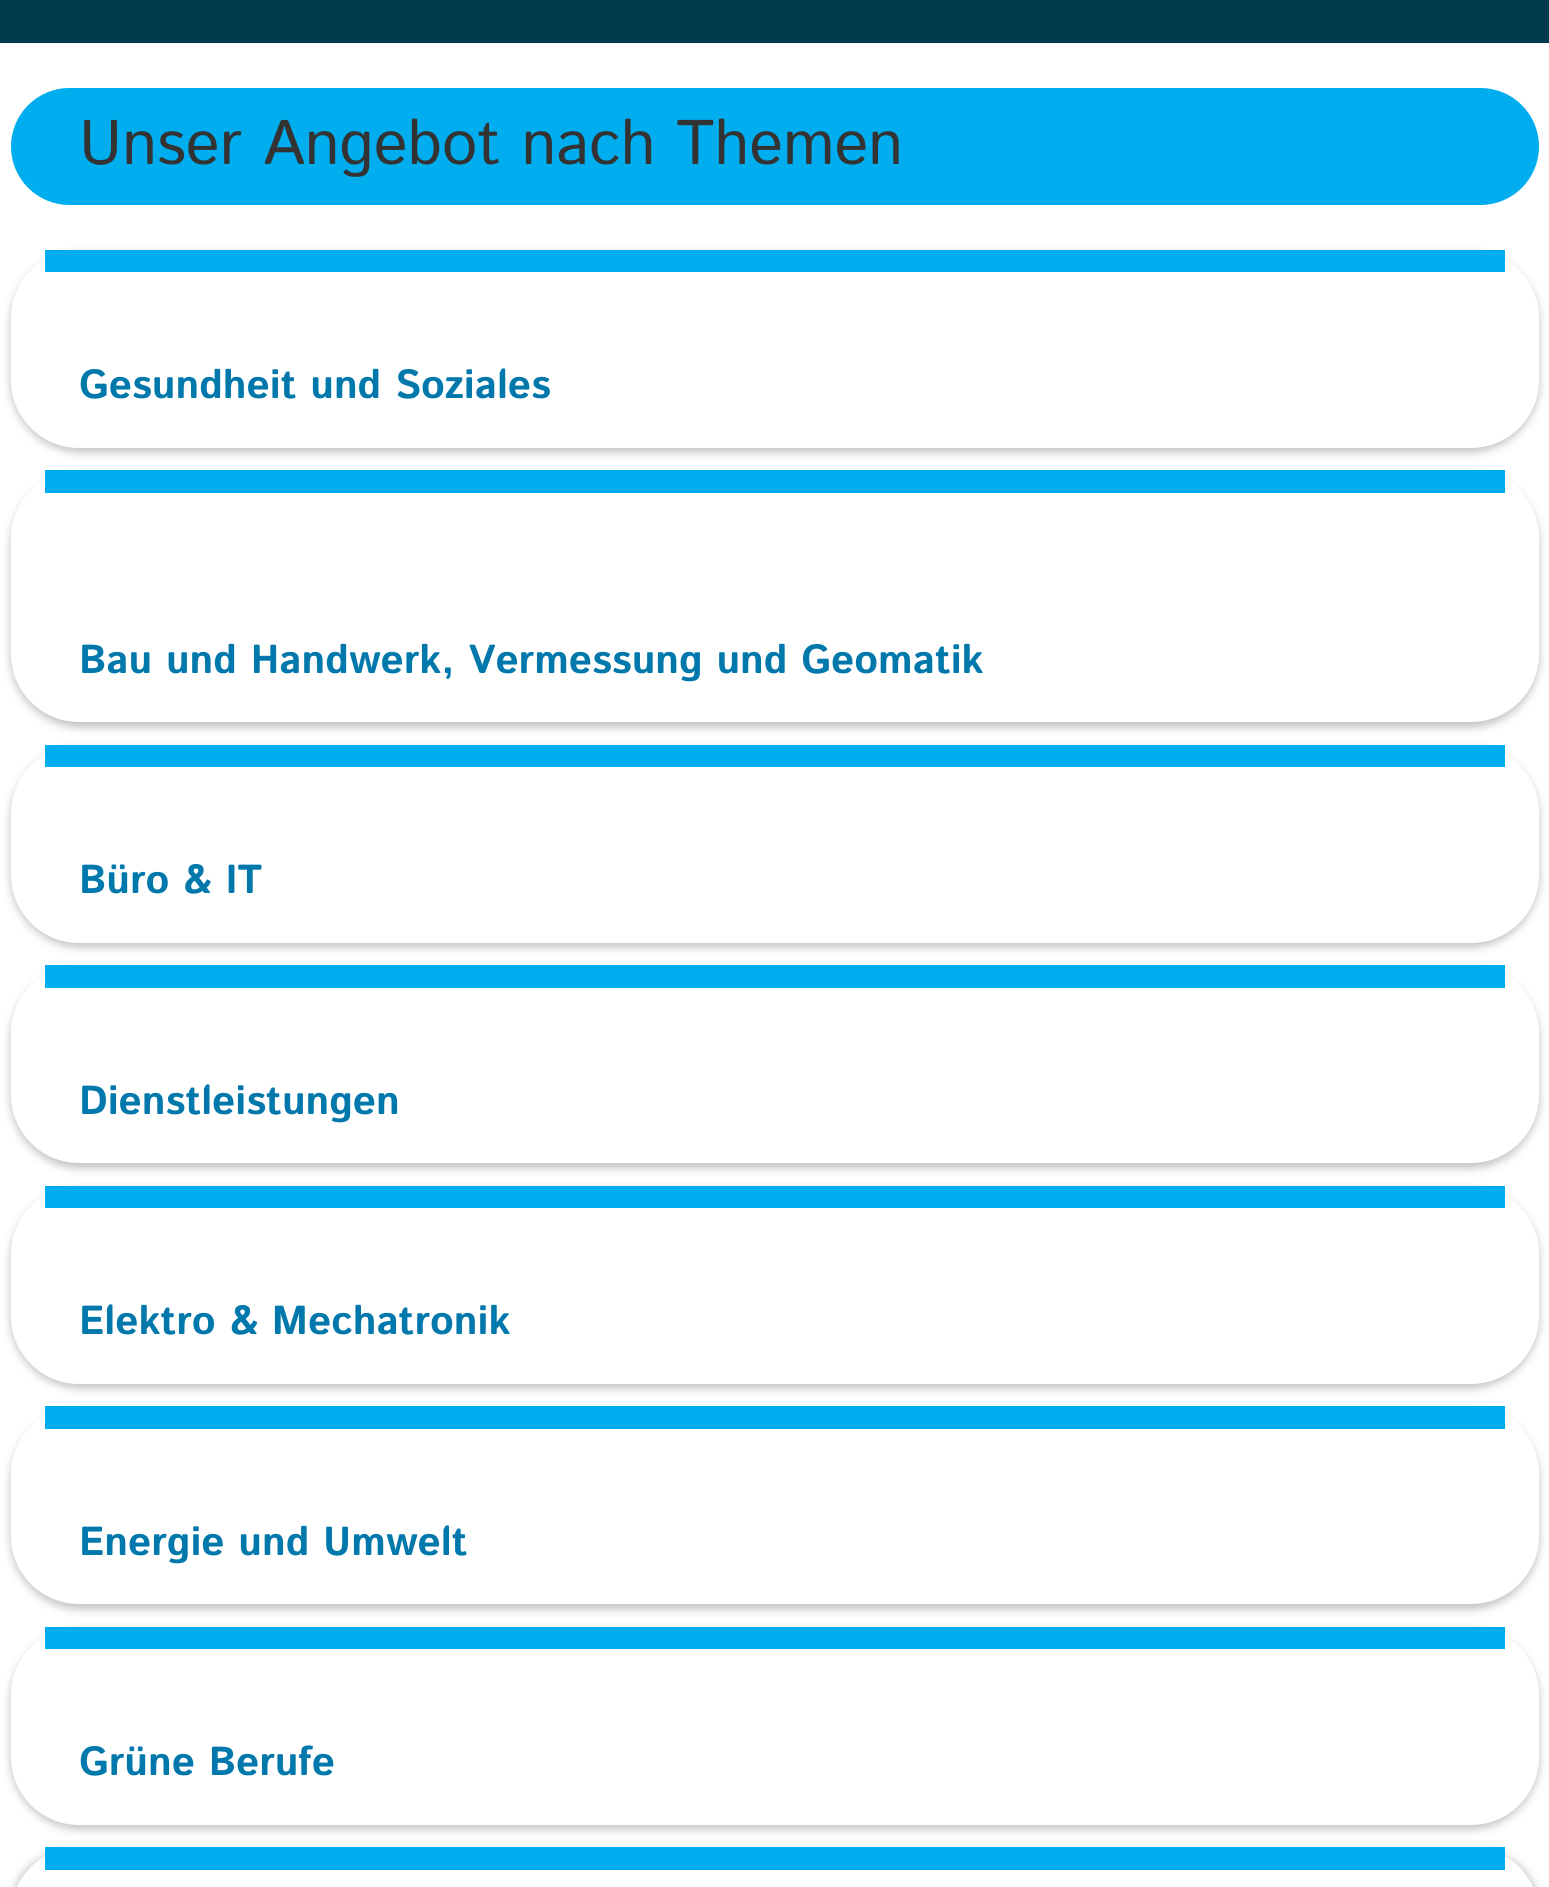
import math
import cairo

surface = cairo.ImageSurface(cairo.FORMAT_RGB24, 1549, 1887)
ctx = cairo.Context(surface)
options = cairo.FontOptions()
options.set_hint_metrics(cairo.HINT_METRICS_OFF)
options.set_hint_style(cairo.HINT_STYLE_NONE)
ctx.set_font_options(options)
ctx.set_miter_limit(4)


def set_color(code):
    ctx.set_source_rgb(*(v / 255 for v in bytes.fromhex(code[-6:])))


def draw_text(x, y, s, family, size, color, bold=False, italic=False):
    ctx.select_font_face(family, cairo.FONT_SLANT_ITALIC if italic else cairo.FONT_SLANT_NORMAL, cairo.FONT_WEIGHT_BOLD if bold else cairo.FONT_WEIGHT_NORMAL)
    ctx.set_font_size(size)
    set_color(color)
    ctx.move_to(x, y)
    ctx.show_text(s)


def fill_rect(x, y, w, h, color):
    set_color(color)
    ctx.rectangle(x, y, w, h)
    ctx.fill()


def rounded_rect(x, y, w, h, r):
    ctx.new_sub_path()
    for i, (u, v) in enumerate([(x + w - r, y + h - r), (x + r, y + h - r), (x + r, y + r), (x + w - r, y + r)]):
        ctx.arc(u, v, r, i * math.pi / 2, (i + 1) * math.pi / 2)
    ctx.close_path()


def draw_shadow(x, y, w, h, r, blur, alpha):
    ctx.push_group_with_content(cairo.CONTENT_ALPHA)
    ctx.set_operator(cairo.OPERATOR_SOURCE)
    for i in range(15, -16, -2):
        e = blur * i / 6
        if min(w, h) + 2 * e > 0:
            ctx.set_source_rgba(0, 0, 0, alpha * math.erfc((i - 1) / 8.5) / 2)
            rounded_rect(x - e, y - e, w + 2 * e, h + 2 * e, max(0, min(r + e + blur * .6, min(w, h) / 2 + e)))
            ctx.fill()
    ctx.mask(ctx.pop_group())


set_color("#ffffff")
ctx.paint()
fill_rect(0, 0, 1549, 43, "#003a4d")
set_color("#00adee")
rounded_rect(11, 88, 1528, 117, 58.5)
ctx.fill()
draw_text(79, 164, "Unser Angebot nach Themen", "Istok Web", 63, "#333333")
set_color("#000000")
draw_shadow(11, 254, 1528, 198, 68, 4.5, 0.25)
set_color("#ffffff")
rounded_rect(11, 250, 1528, 198, 68)
ctx.fill()
fill_rect(45, 250, 1460, 22, "#00adee")
draw_text(79, 398, "Gesundheit und Soziales", "Istok Web", 40.5, "#0078ab", bold=True)
set_color("#000000")
draw_shadow(11, 475, 1528, 252, 68, 4.5, 0.25)
set_color("#ffffff")
rounded_rect(11, 470, 1528, 252, 68)
ctx.fill()
fill_rect(45, 470, 1460, 23, "#00adee")
draw_text(79, 673, "Bau und Handwerk, Vermessung und Geomatik", "Istok Web", 40.5, "#0078ab", bold=True)
set_color("#000000")
draw_shadow(11, 749, 1528, 198, 68, 4.5, 0.25)
set_color("#ffffff")
rounded_rect(11, 745, 1528, 198, 68)
ctx.fill()
fill_rect(45, 745, 1460, 22, "#00adee")
draw_text(79, 893, "Büro & IT", "Istok Web", 40.5, "#0078ab", bold=True)
set_color("#000000")
draw_shadow(11, 970, 1528, 198, 68, 4.5, 0.25)
set_color("#ffffff")
rounded_rect(11, 965, 1528, 198, 68)
ctx.fill()
fill_rect(45, 965, 1460, 23, "#00adee")
draw_text(79, 1114, "Dienstleistungen", "Istok Web", 40.5, "#0078ab", bold=True)
set_color("#000000")
draw_shadow(11, 1190, 1528, 198, 68, 4.5, 0.25)
set_color("#ffffff")
rounded_rect(11, 1186, 1528, 198, 68)
ctx.fill()
fill_rect(45, 1186, 1460, 22, "#00adee")
draw_text(79, 1334, "Elektro & Mechatronik", "Istok Web", 40.5, "#0078ab", bold=True)
set_color("#000000")
draw_shadow(11, 1411, 1528, 198, 68, 4.5, 0.25)
set_color("#ffffff")
rounded_rect(11, 1406, 1528, 198, 68)
ctx.fill()
fill_rect(45, 1406, 1460, 23, "#00adee")
draw_text(79, 1555, "Energie und Umwelt", "Istok Web", 40.5, "#0078ab", bold=True)
set_color("#000000")
draw_shadow(11, 1631, 1528, 198, 68, 4.5, 0.25)
set_color("#ffffff")
rounded_rect(11, 1627, 1528, 198, 68)
ctx.fill()
fill_rect(45, 1627, 1460, 22, "#00adee")
draw_text(79, 1775, "Grüne Berufe", "Istok Web", 40.5, "#0078ab", bold=True)
set_color("#000000")
draw_shadow(11, 1852, 1528, 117, 68, 4.5, 0.25)
set_color("#ffffff")
rounded_rect(11, 1847, 1528, 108, 68)
ctx.fill()
fill_rect(45, 1847, 1460, 23, "#00adee")
surface.write_to_png("output.png")
